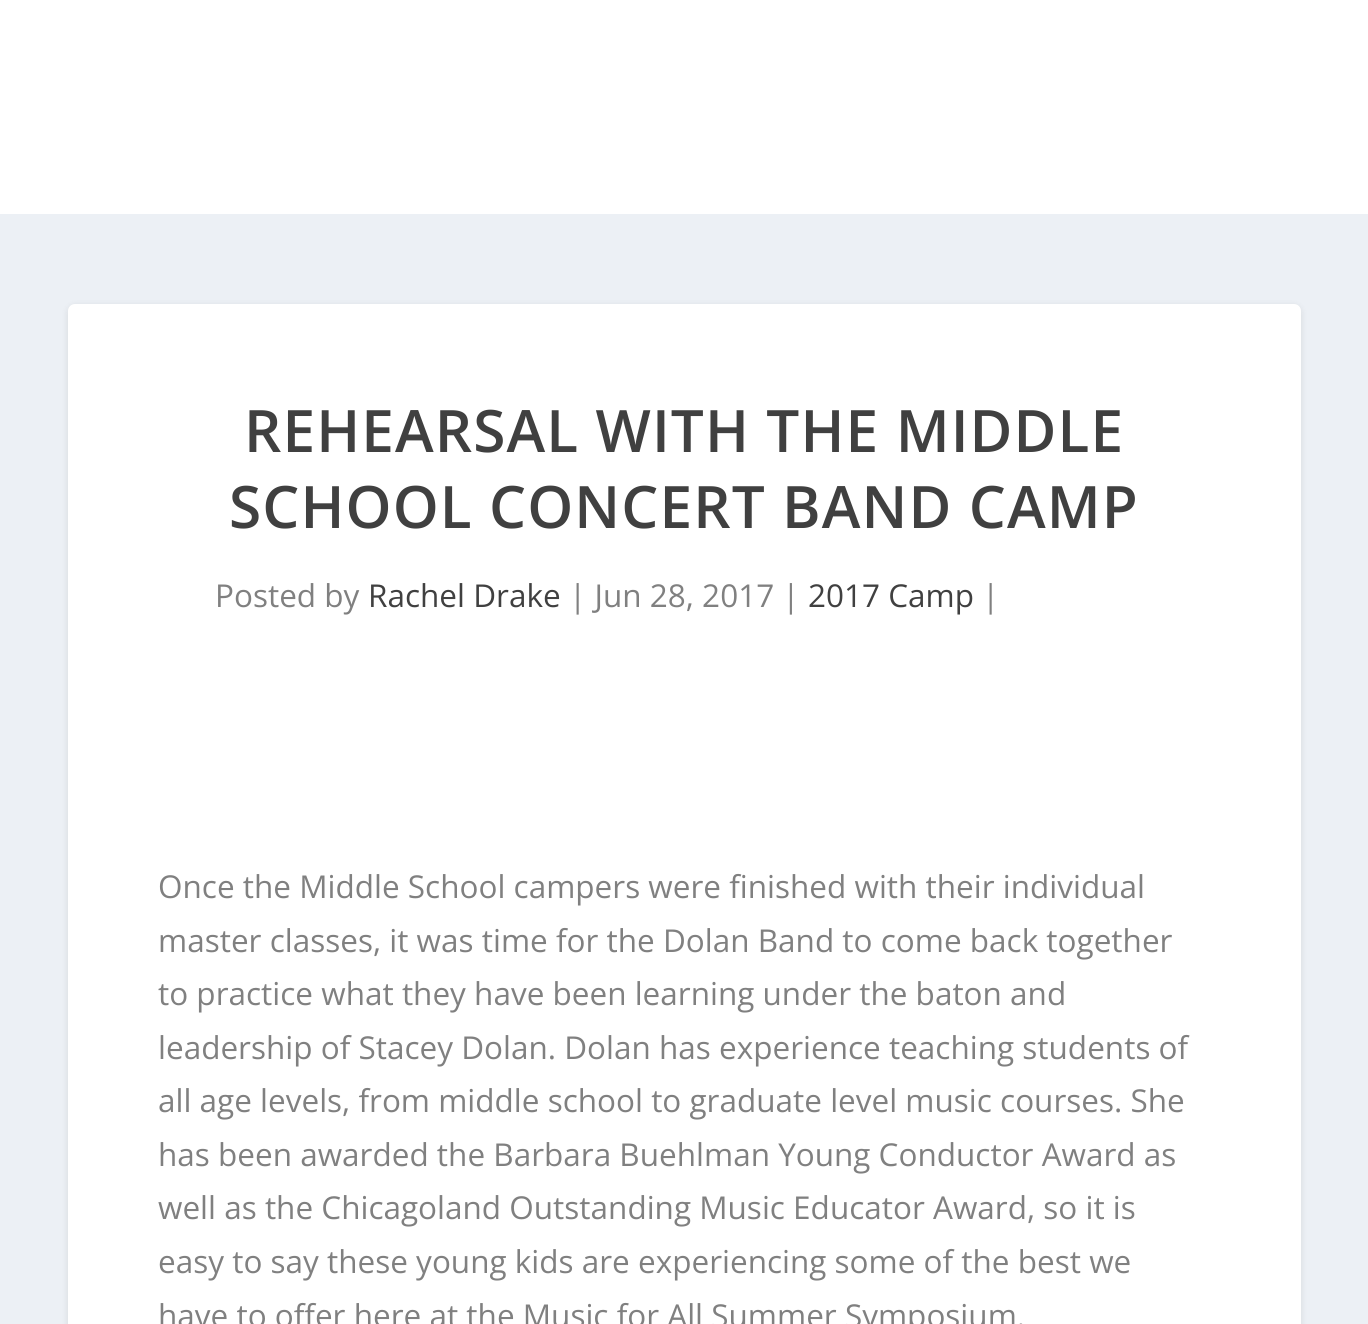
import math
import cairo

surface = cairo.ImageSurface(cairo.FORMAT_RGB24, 1368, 1324)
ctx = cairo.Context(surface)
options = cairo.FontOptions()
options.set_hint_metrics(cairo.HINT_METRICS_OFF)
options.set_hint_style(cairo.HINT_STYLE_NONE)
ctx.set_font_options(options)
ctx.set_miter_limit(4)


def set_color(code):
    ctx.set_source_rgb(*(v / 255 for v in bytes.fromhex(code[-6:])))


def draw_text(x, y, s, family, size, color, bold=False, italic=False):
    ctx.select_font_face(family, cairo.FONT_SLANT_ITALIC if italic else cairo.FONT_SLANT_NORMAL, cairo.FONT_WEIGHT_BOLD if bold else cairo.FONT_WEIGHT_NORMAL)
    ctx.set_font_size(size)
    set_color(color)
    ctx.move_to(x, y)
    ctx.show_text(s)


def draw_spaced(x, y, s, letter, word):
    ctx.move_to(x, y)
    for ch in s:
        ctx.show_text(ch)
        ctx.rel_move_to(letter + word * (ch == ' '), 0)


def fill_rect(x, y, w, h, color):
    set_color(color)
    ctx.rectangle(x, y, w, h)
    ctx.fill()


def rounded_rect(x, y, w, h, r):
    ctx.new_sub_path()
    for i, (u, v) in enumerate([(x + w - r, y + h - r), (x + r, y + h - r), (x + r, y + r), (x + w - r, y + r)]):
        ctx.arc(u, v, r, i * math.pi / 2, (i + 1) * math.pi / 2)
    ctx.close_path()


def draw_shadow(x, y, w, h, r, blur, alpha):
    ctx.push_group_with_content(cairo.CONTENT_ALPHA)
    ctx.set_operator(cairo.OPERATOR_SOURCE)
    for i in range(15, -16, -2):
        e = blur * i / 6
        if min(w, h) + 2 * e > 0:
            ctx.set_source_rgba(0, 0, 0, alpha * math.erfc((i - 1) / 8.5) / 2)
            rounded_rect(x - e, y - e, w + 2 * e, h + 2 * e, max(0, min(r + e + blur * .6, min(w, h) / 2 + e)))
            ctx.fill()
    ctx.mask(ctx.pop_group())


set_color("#ecf0f5")
ctx.paint()
fill_rect(0, 0, 1368, 214, "#ffffff")
set_color("#000000")
draw_shadow(68, 306, 1233, 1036, 7, 3.5, 0.1)
set_color("#ffffff")
rounded_rect(68, 304, 1233, 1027, 7)
ctx.fill()
ctx.select_font_face("Open Sans SemiBold")
ctx.set_font_size(58.5)
set_color("#404040")
draw_spaced(244, 452, "REHEARSAL WITH THE MIDDLE", 1.1, 0)
draw_spaced(229, 528, "SCHOOL CONCERT BAND CAMP", 1.1, 0)
draw_text(215, 607, "Posted by", "Open Sans", 31.5, "#808080")
draw_text(368, 607, "Rachel Drake", "Open Sans", 31.5, "#404040")
draw_text(569, 607, "| Jun 28, 2017 |", "Open Sans", 31.5, "#808080")
draw_text(808, 607, "2017 Camp", "Open Sans", 31.5, "#404040")
draw_text(982, 607, "|", "Open Sans", 31.5, "#808080")
draw_text(158, 898, "Once the Middle School campers were finished with their individual", "Open Sans", 31.5, "#808080")
draw_text(158, 952, "master classes, it was time for the Dolan Band to come back together", "Open Sans", 31.5, "#808080")
draw_text(158, 1005, "to practice what they have been learning under the baton and", "Open Sans", 31.5, "#808080")
draw_text(158, 1059, "leadership of Stacey Dolan. Dolan has experience teaching students of", "Open Sans", 31.5, "#808080")
draw_text(158, 1112, "all age levels, from middle school to graduate level music courses. She", "Open Sans", 31.5, "#808080")
draw_text(158, 1166, "has been awarded the Barbara Buehlman Young Conductor Award as", "Open Sans", 31.5, "#808080")
draw_text(158, 1219, "well as the Chicagoland Outstanding Music Educator Award, so it is", "Open Sans", 31.5, "#808080")
draw_text(158, 1273, "easy to say these young kids are experiencing some of the best we", "Open Sans", 31.5, "#808080")
draw_text(158, 1327, "have to offer here at the Music for All Summer Symposium.", "Open Sans", 31.5, "#808080")
surface.write_to_png("output.png")
